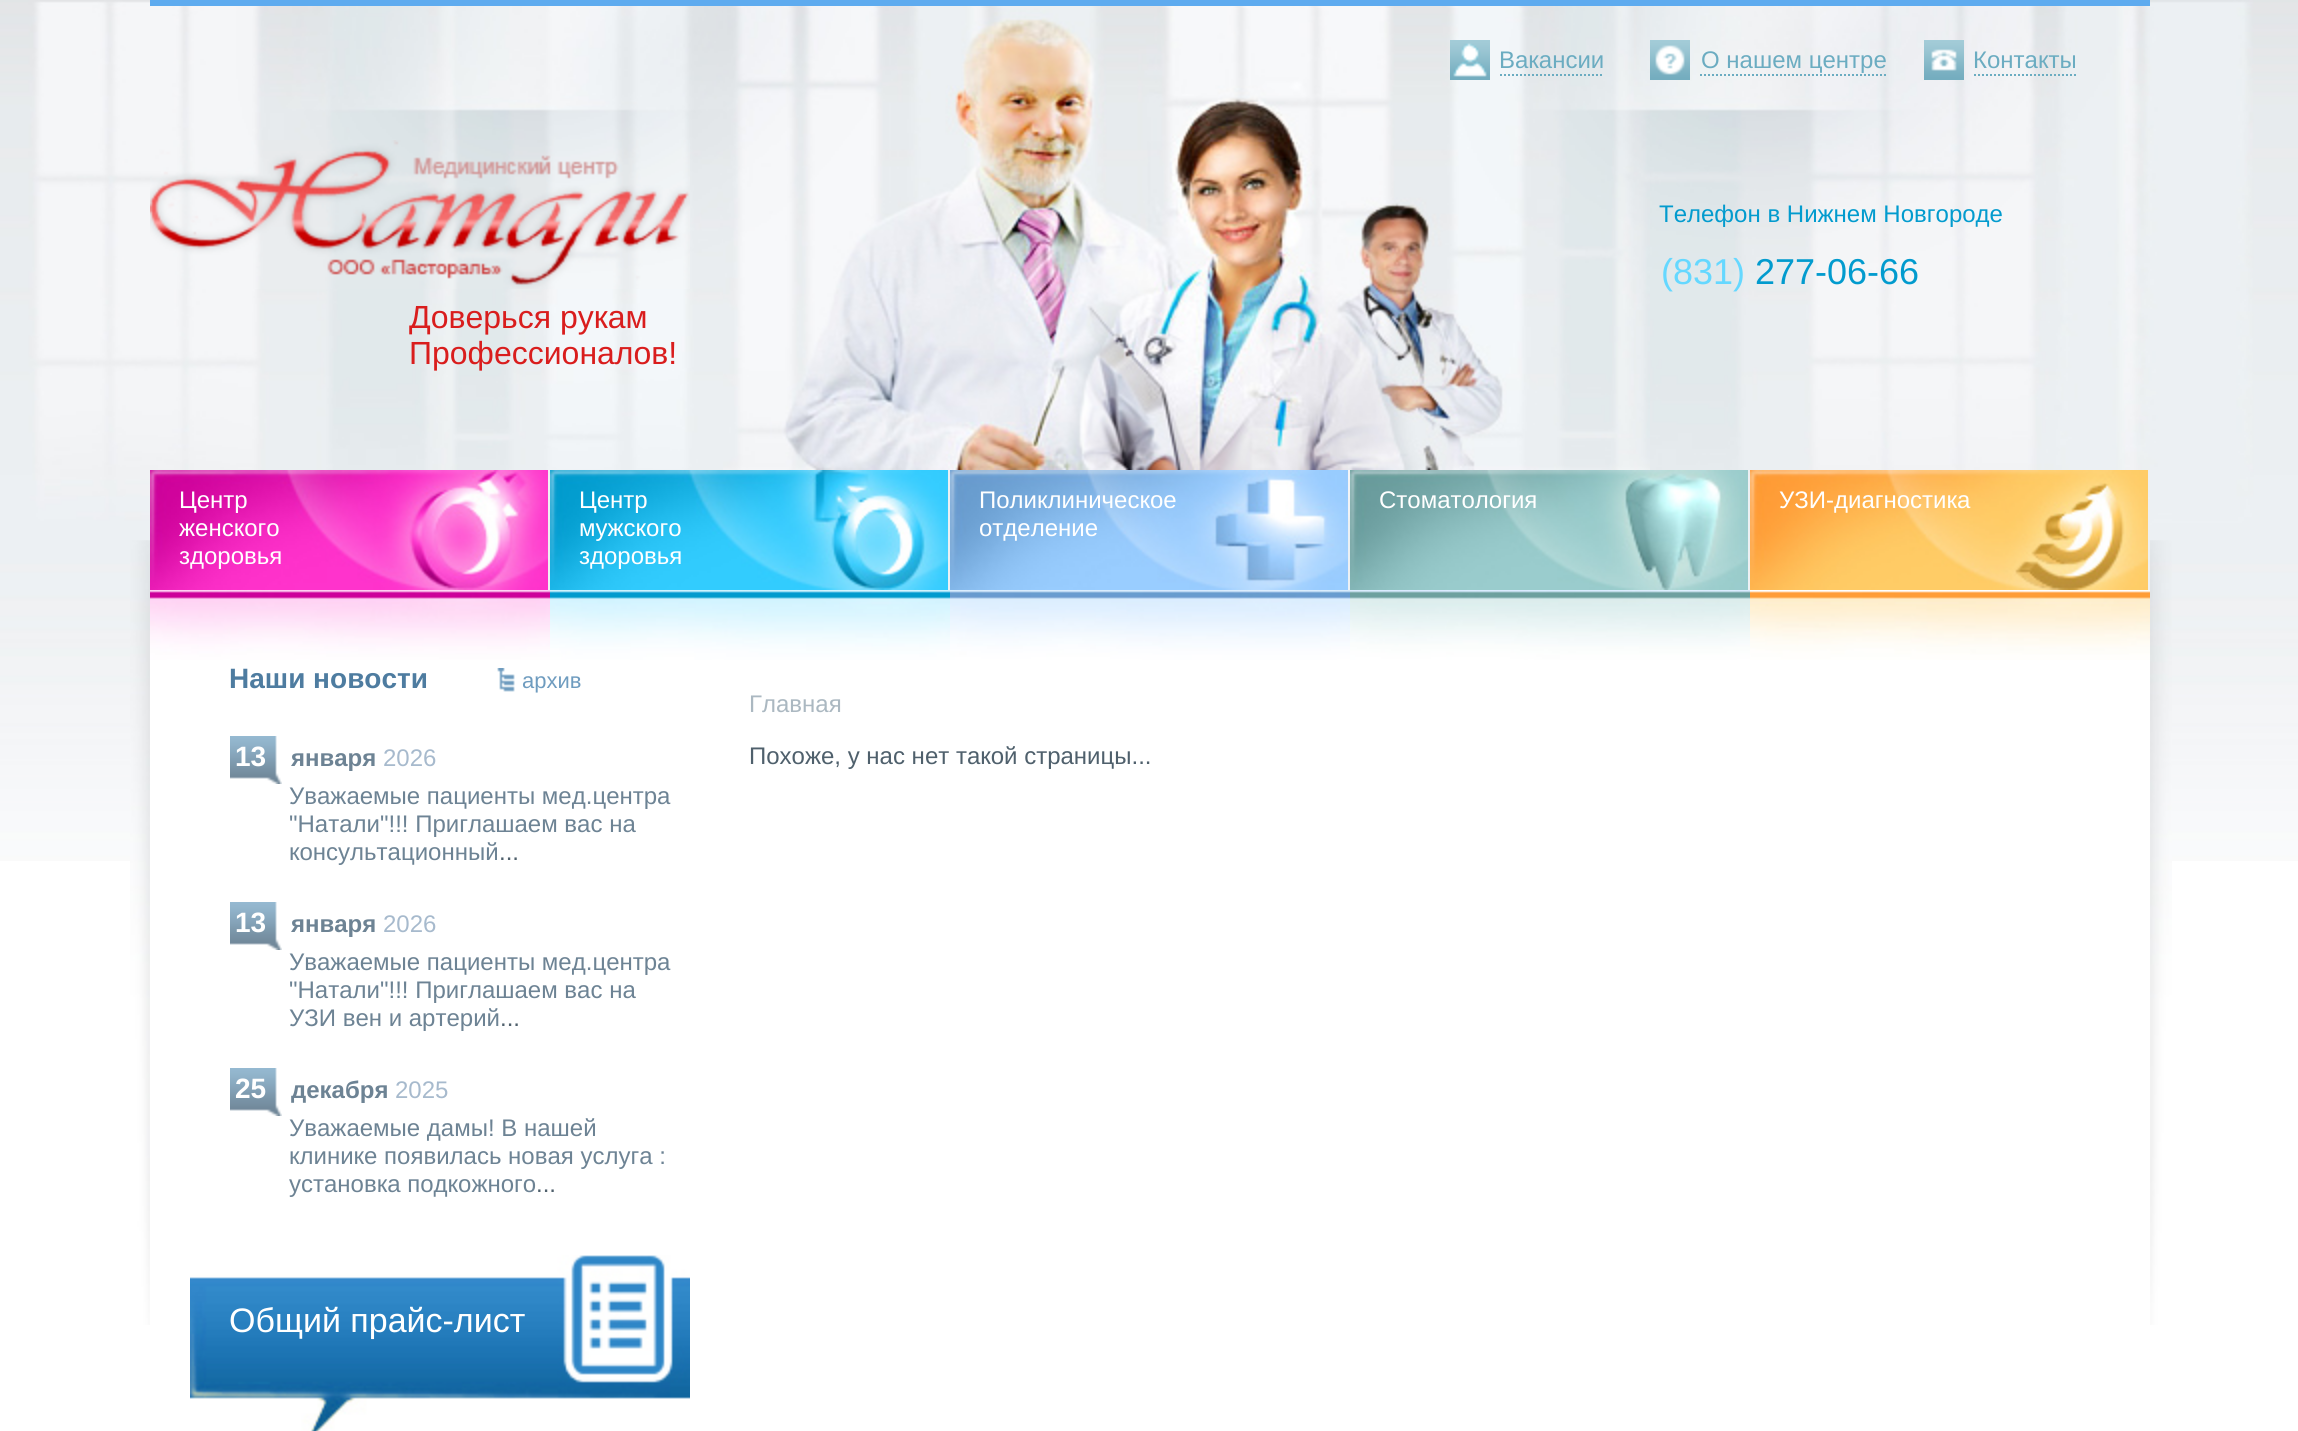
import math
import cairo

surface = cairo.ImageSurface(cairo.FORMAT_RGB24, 2298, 1431)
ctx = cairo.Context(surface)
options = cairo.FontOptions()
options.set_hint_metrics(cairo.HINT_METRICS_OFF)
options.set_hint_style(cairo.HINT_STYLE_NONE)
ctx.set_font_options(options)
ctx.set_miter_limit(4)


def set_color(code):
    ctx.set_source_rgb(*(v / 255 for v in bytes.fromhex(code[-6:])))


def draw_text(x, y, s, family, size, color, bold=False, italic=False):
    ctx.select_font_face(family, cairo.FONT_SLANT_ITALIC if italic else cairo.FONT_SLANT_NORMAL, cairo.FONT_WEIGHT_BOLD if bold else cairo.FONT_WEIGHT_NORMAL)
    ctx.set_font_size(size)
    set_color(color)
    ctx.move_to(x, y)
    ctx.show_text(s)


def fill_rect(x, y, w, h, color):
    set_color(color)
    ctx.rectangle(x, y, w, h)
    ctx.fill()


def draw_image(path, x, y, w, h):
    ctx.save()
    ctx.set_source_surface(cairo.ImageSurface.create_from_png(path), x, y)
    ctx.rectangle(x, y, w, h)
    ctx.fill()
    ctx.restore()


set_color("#ffffff")
ctx.paint()
draw_image("assets/img1.png", 0, 0, 2298, 861)
fill_rect(150, 0, 2000, 6, "#5eabef")
draw_image("assets/img2.png", 723, 8, 927, 462)
draw_image("assets/img3.png", 1450, 40, 40, 40)
draw_text(1499, 68, "Вакансии", "Liberation Sans", 24, "#6bacc1")
ctx.new_path()
ctx.move_to(1500, 75)
ctx.line_to(1604, 75)
ctx.set_dash([2, 2])
ctx.stroke()
draw_image("assets/img4.png", 1650, 40, 40, 40)
draw_text(1701, 68, "О нашем центре", "Liberation Sans", 24, "#6bacc1")
ctx.new_path()
ctx.move_to(1700, 75)
ctx.line_to(1886, 75)
ctx.stroke()
draw_image("assets/img5.png", 1924, 40, 40, 40)
draw_text(1973, 68, "Контакты", "Liberation Sans", 24, "#6bacc1")
ctx.new_path()
ctx.move_to(1974, 75)
ctx.line_to(2078, 75)
ctx.stroke()
draw_text(1659, 222, "Телефон в Нижнем Новгороде", "Liberation Sans", 24, "#029bce")
draw_text(1661, 284, "(831)", "Liberation Sans", 36, "#65d8ff")
draw_text(1755, 284, "277-06-66", "Liberation Sans", 36, "#029bce")
draw_image("assets/img6.png", 150, 140, 540, 149)
draw_text(409, 328, "Доверься рукам", "Liberation Sans", 32, "#d91d1d")
draw_text(409, 364, "Профессионалов!", "Liberation Sans", 32, "#d91d1d")
draw_image("assets/img7.png", 130, 540, 20, 785)
draw_image("assets/img8.png", 150, 590, 400, 70)
draw_image("assets/img9.png", 150, 470, 398, 120)
draw_text(179, 508, "Центр", "Liberation Sans", 24, "#ffffff")
draw_text(179, 536, "женского", "Liberation Sans", 24, "#ffffff")
draw_text(179, 564, "здоровья", "Liberation Sans", 24, "#ffffff")
draw_image("assets/img10.png", 550, 590, 400, 70)
draw_image("assets/img11.png", 550, 470, 398, 120)
draw_text(579, 508, "Центр", "Liberation Sans", 24, "#ffffff")
draw_text(579, 536, "мужского", "Liberation Sans", 24, "#ffffff")
draw_text(579, 564, "здоровья", "Liberation Sans", 24, "#ffffff")
draw_image("assets/img12.png", 950, 590, 400, 70)
draw_image("assets/img13.png", 950, 470, 398, 120)
draw_text(979, 508, "Поликлиническое", "Liberation Sans", 24, "#ffffff")
draw_text(979, 536, "отделение", "Liberation Sans", 24, "#ffffff")
draw_image("assets/img14.png", 1350, 590, 400, 70)
draw_image("assets/img15.png", 1350, 470, 398, 120)
draw_text(1379, 508, "Стоматология", "Liberation Sans", 24, "#ffffff")
draw_image("assets/img16.png", 1750, 590, 400, 70)
draw_image("assets/img17.png", 1750, 470, 398, 120)
draw_text(1779, 508, "УЗИ-диагностика", "Liberation Sans", 24, "#ffffff")
fill_rect(150, 660, 2000, 201, "#ffffff")
draw_text(229, 688, "Наши новости", "Liberation Sans", 28, "#4e7ca0", bold=True)
draw_image("assets/img18.png", 497, 668, 18, 24)
draw_text(522, 688, "архив", "Liberation Sans", 22, "#6f9cbf")
draw_image("assets/img19.png", 230, 736, 52, 48)
draw_text(235, 766, "13", "Liberation Sans", 28, "#ffffff", bold=True)
draw_text(291, 766, "января", "Liberation Sans", 24, "#6d8394", bold=True)
draw_text(383, 766, "2026", "Liberation Sans", 24, "#a7bacd")
draw_text(289, 804, "Уважаемые пациенты мед.центра", "Liberation Sans", 24, "#6d8394")
draw_text(289, 832, "\"Натали\"!!! Приглашаем вас на", "Liberation Sans", 24, "#6d8394")
draw_text(289, 860, "консультационный", "Liberation Sans", 24, "#6d8394")
draw_text(499, 860, "...", "Liberation Sans", 24, "#4f606c")
draw_image("assets/img19.png", 230, 902, 52, 48)
draw_text(235, 932, "13", "Liberation Sans", 28, "#ffffff", bold=True)
draw_text(291, 932, "января", "Liberation Sans", 24, "#6d8394", bold=True)
draw_text(383, 932, "2026", "Liberation Sans", 24, "#a7bacd")
draw_text(289, 970, "Уважаемые пациенты мед.центра", "Liberation Sans", 24, "#6d8394")
draw_text(289, 998, "\"Натали\"!!! Приглашаем вас на", "Liberation Sans", 24, "#6d8394")
draw_text(289, 1026, "УЗИ вен и артерий", "Liberation Sans", 24, "#6d8394")
draw_text(500, 1026, "...", "Liberation Sans", 24, "#4f606c")
draw_image("assets/img19.png", 230, 1068, 52, 48)
draw_text(235, 1098, "25", "Liberation Sans", 28, "#ffffff", bold=True)
draw_text(291, 1098, "декабря", "Liberation Sans", 24, "#6d8394", bold=True)
draw_text(395, 1098, "2025", "Liberation Sans", 24, "#a7bacd")
draw_text(289, 1136, "Уважаемые дамы! В нашей", "Liberation Sans", 24, "#6d8394")
draw_text(289, 1164, "клинике появилась новая услуга :", "Liberation Sans", 24, "#6d8394")
draw_text(289, 1192, "установка подкожного", "Liberation Sans", 24, "#6d8394")
draw_text(536, 1192, "...", "Liberation Sans", 24, "#4f606c")
draw_image("assets/img20.png", 190, 1255, 500, 176)
draw_text(229, 1332, "Общий прайс-лист", "Liberation Sans", 34, "#ffffff")
draw_text(749, 712, "Главная", "Liberation Sans", 24, "#abb8c1")
draw_text(749, 764, "Похоже, у нас нет такой страницы...", "Liberation Sans", 24, "#4f606c")
draw_image("assets/img21.png", 2150, 540, 22, 785)
surface.write_to_png("output.png")
